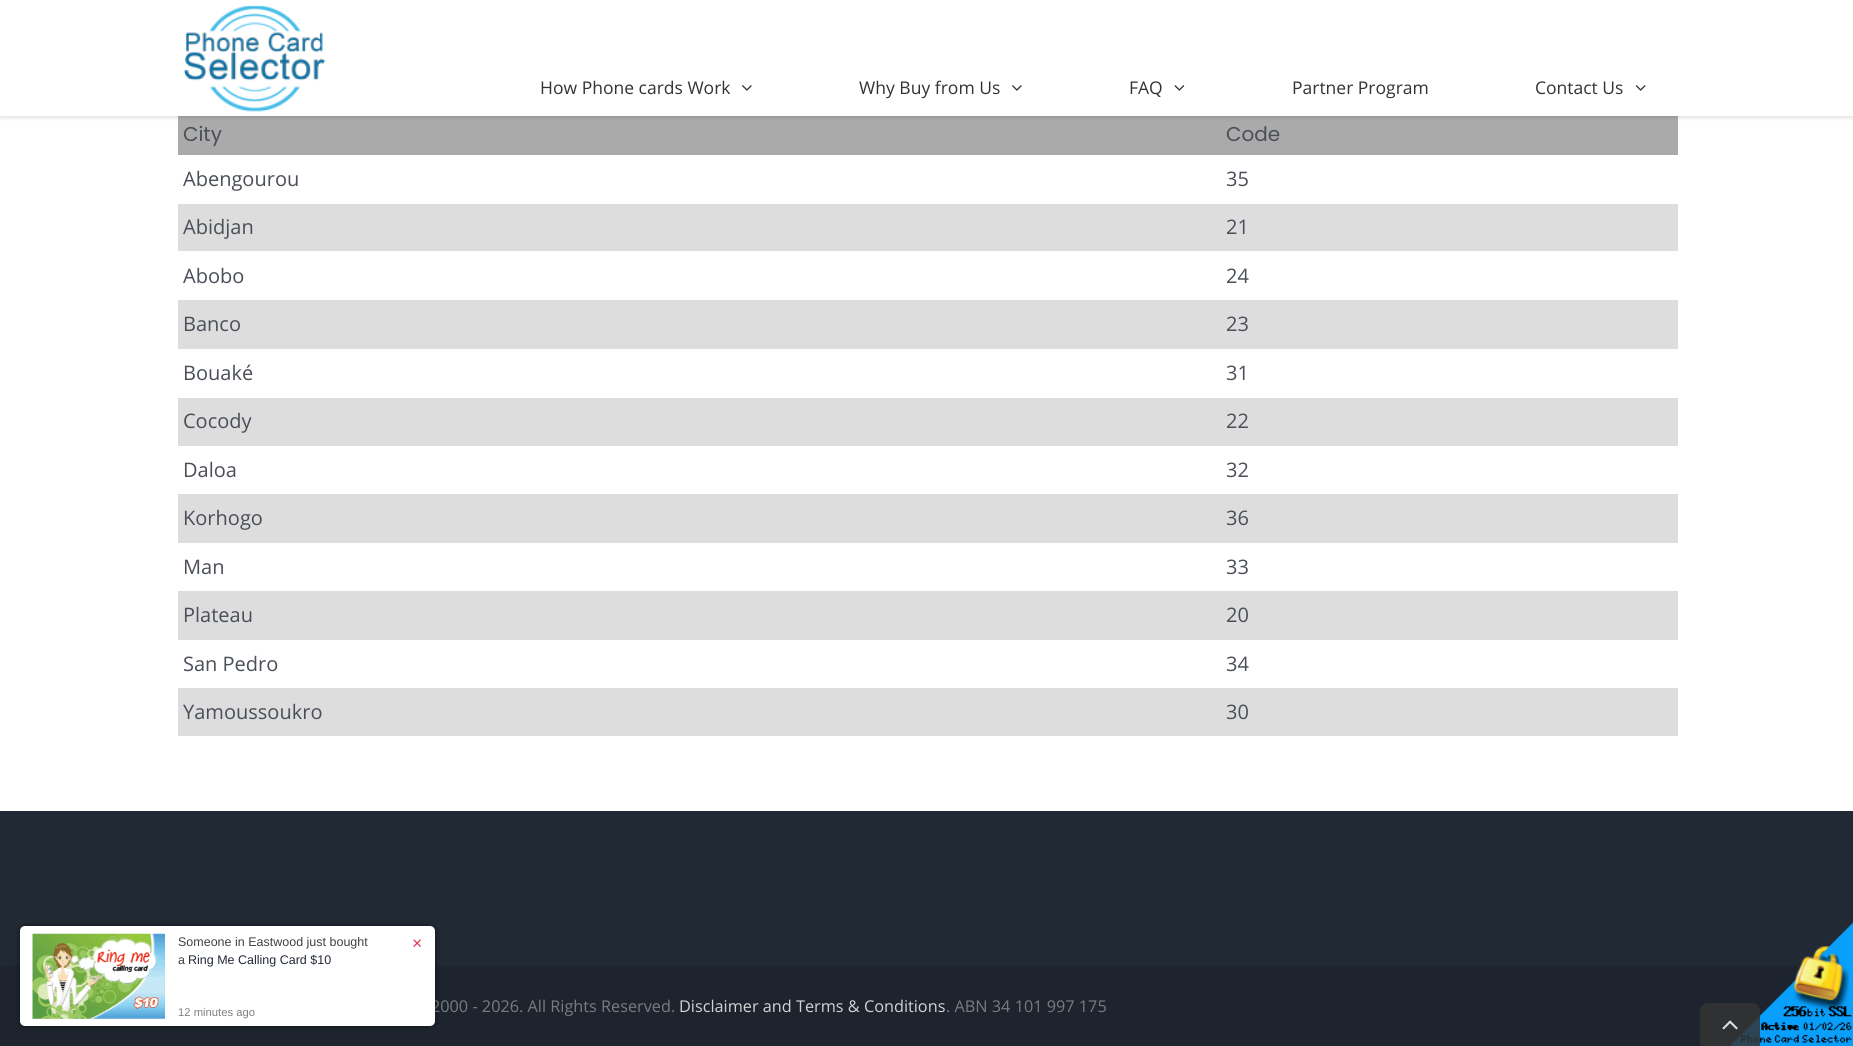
import math
import cairo

surface = cairo.ImageSurface(cairo.FORMAT_RGB24, 1853, 1046)
ctx = cairo.Context(surface)
options = cairo.FontOptions()
options.set_hint_metrics(cairo.HINT_METRICS_OFF)
options.set_hint_style(cairo.HINT_STYLE_NONE)
ctx.set_font_options(options)
ctx.set_miter_limit(4)


def set_color(code):
    ctx.set_source_rgb(*(v / 255 for v in bytes.fromhex(code[-6:])))


def draw_text(x, y, s, family, size, color, bold=False, italic=False):
    ctx.select_font_face(family, cairo.FONT_SLANT_ITALIC if italic else cairo.FONT_SLANT_NORMAL, cairo.FONT_WEIGHT_BOLD if bold else cairo.FONT_WEIGHT_NORMAL)
    ctx.set_font_size(size)
    set_color(color)
    ctx.move_to(x, y)
    ctx.show_text(s)


def fill_rect(x, y, w, h, color):
    set_color(color)
    ctx.rectangle(x, y, w, h)
    ctx.fill()


def rounded_rect(x, y, w, h, r):
    ctx.new_sub_path()
    for i, (u, v) in enumerate([(x + w - r, y + h - r), (x + r, y + h - r), (x + r, y + r), (x + w - r, y + r)]):
        ctx.arc(u, v, r, i * math.pi / 2, (i + 1) * math.pi / 2)
    ctx.close_path()


def draw_shadow(x, y, w, h, r, blur, alpha):
    ctx.push_group_with_content(cairo.CONTENT_ALPHA)
    ctx.set_operator(cairo.OPERATOR_SOURCE)
    for i in range(15, -16, -2):
        e = blur * i / 6
        if min(w, h) + 2 * e > 0:
            ctx.set_source_rgba(0, 0, 0, alpha * math.erfc((i - 1) / 8.5) / 2)
            rounded_rect(x - e, y - e, w + 2 * e, h + 2 * e, max(0, min(r + e + blur * .6, min(w, h) / 2 + e)))
            ctx.fill()
    ctx.mask(ctx.pop_group())


def draw_image(path, x, y, w, h):
    ctx.save()
    ctx.set_source_surface(cairo.ImageSurface.create_from_png(path), x, y)
    ctx.rectangle(x, y, w, h)
    ctx.fill()
    ctx.restore()


set_color("#ffffff")
ctx.paint()
fill_rect(178, 116, 1500, 39, "#aaaaaa")
set_color("#000000")
draw_shadow(0, 1, 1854, 117, 0, 2, 0.12)
fill_rect(0, 0, 1853, 116, "#ffffff")
draw_image("assets/img1.png", 183, 5, 143, 107)
draw_text(540, 94, "How Phone cards Work", "Open Sans", 17.5, "#333333")
draw_image("assets/img2.png", 742, 85, 10, 6)
draw_text(859, 94, "Why Buy from Us", "Open Sans", 17.5, "#333333")
draw_image("assets/img2.png", 1012, 85, 10, 6)
draw_text(1129, 94, "FAQ", "Open Sans", 17.5, "#333333")
draw_image("assets/img3.png", 1174, 85, 11, 6)
draw_text(1292, 94, "Partner Program", "Open Sans", 17.5, "#333333")
draw_text(1535, 94, "Contact Us", "Open Sans", 17.5, "#333333")
draw_image("assets/img4.png", 1635, 85, 11, 6)
draw_text(183, 141, "City", "Poppins", 20, "#4a4e57")
draw_text(1226, 141, "Code", "Poppins", 20, "#4a4e57")
draw_text(183, 186, "Abengourou", "Open Sans", 20, "#4a4e57")
draw_text(1226, 186, "35", "Open Sans", 20, "#4a4e57")
fill_rect(178, 204, 1500, 47, "#dddddd")
draw_text(183, 234, "Abidjan", "Open Sans", 20, "#4a4e57")
draw_text(1226, 234, "21", "Open Sans", 20, "#4a4e57")
draw_text(183, 283, "Abobo", "Open Sans", 20, "#4a4e57")
draw_text(1226, 283, "24", "Open Sans", 20, "#4a4e57")
fill_rect(178, 300, 1500, 49, "#dddddd")
draw_text(183, 331, "Banco", "Open Sans", 20, "#4a4e57")
draw_text(1226, 331, "23", "Open Sans", 20, "#4a4e57")
draw_text(183, 380, "Bouaké", "Open Sans", 20, "#4a4e57")
draw_text(1226, 380, "31", "Open Sans", 20, "#4a4e57")
fill_rect(178, 398, 1500, 48, "#dddddd")
draw_text(183, 428, "Cocody", "Open Sans", 20, "#4a4e57")
draw_text(1226, 428, "22", "Open Sans", 20, "#4a4e57")
draw_text(183, 477, "Daloa", "Open Sans", 20, "#4a4e57")
draw_text(1226, 477, "32", "Open Sans", 20, "#4a4e57")
fill_rect(178, 494, 1500, 49, "#dddddd")
draw_text(183, 525, "Korhogo", "Open Sans", 20, "#4a4e57")
draw_text(1226, 525, "36", "Open Sans", 20, "#4a4e57")
draw_text(183, 574, "Man", "Open Sans", 20, "#4a4e57")
draw_text(1226, 574, "33", "Open Sans", 20, "#4a4e57")
fill_rect(178, 591, 1500, 49, "#dddddd")
draw_text(183, 622, "Plateau", "Open Sans", 20, "#4a4e57")
draw_text(1226, 622, "20", "Open Sans", 20, "#4a4e57")
draw_text(183, 671, "San Pedro", "Open Sans", 20, "#4a4e57")
draw_text(1226, 671, "34", "Open Sans", 20, "#4a4e57")
fill_rect(178, 688, 1500, 48, "#dddddd")
draw_text(183, 719, "Yamoussoukro", "Open Sans", 20, "#4a4e57")
draw_text(1226, 719, "30", "Open Sans", 20, "#4a4e57")
fill_rect(0, 811, 1853, 155, "#212934")
fill_rect(0, 966, 1807, 80, "#1d242d")
draw_text(431, 1012, "2000 - 2026. All Rights Reserved.", "Open Sans", 16.25, "#777c81")
draw_text(679, 1012, "Disclaimer and Terms & Conditions", "Open Sans", 16.25, "#d2d3d5")
draw_text(946, 1012, ". ABN 34 101 997 175", "Open Sans", 16.25, "#777c81")
draw_image("assets/img5.png", 1729, 922, 124, 124)
set_color("#000000")
draw_shadow(20, 926, 415, 100, 5, 2.5, 0.5)
set_color("#ffffff")
rounded_rect(20, 926, 415, 100, 5)
ctx.fill()
draw_image("assets/img6.png", 32, 933, 133, 86)
draw_text(178, 946, "Someone in Eastwood just bought", "Liberation Sans", 12.5, "#414042")
draw_text(178, 964, "a", "Liberation Sans", 12.5, "#414042")
draw_text(188, 964, "Ring Me Calling Card $10", "Liberation Sans", 12.5, "#212934")
draw_text(412, 949, "×", "Liberation Sans", 17.5, "#e83650")
draw_text(178, 1016, "12 minutes ago", "Liberation Sans", 11.25, "#808080")
ctx.set_source_rgba(0.2, 0.2, 0.2, 0.84)
ctx.new_path()
ctx.move_to(1708, 1003)
ctx.line_to(1752, 1003)
ctx.curve_to(1756.5, 1003, 1760, 1006.5, 1760, 1011)
ctx.line_to(1760, 1046)
ctx.line_to(1700, 1046)
ctx.line_to(1700, 1011)
ctx.curve_to(1700, 1006.5, 1703.5, 1003, 1708, 1003)
ctx.close_path()
ctx.fill()
draw_image("assets/img7.png", 1722, 1020, 16, 10)
surface.write_to_png("output.png")
